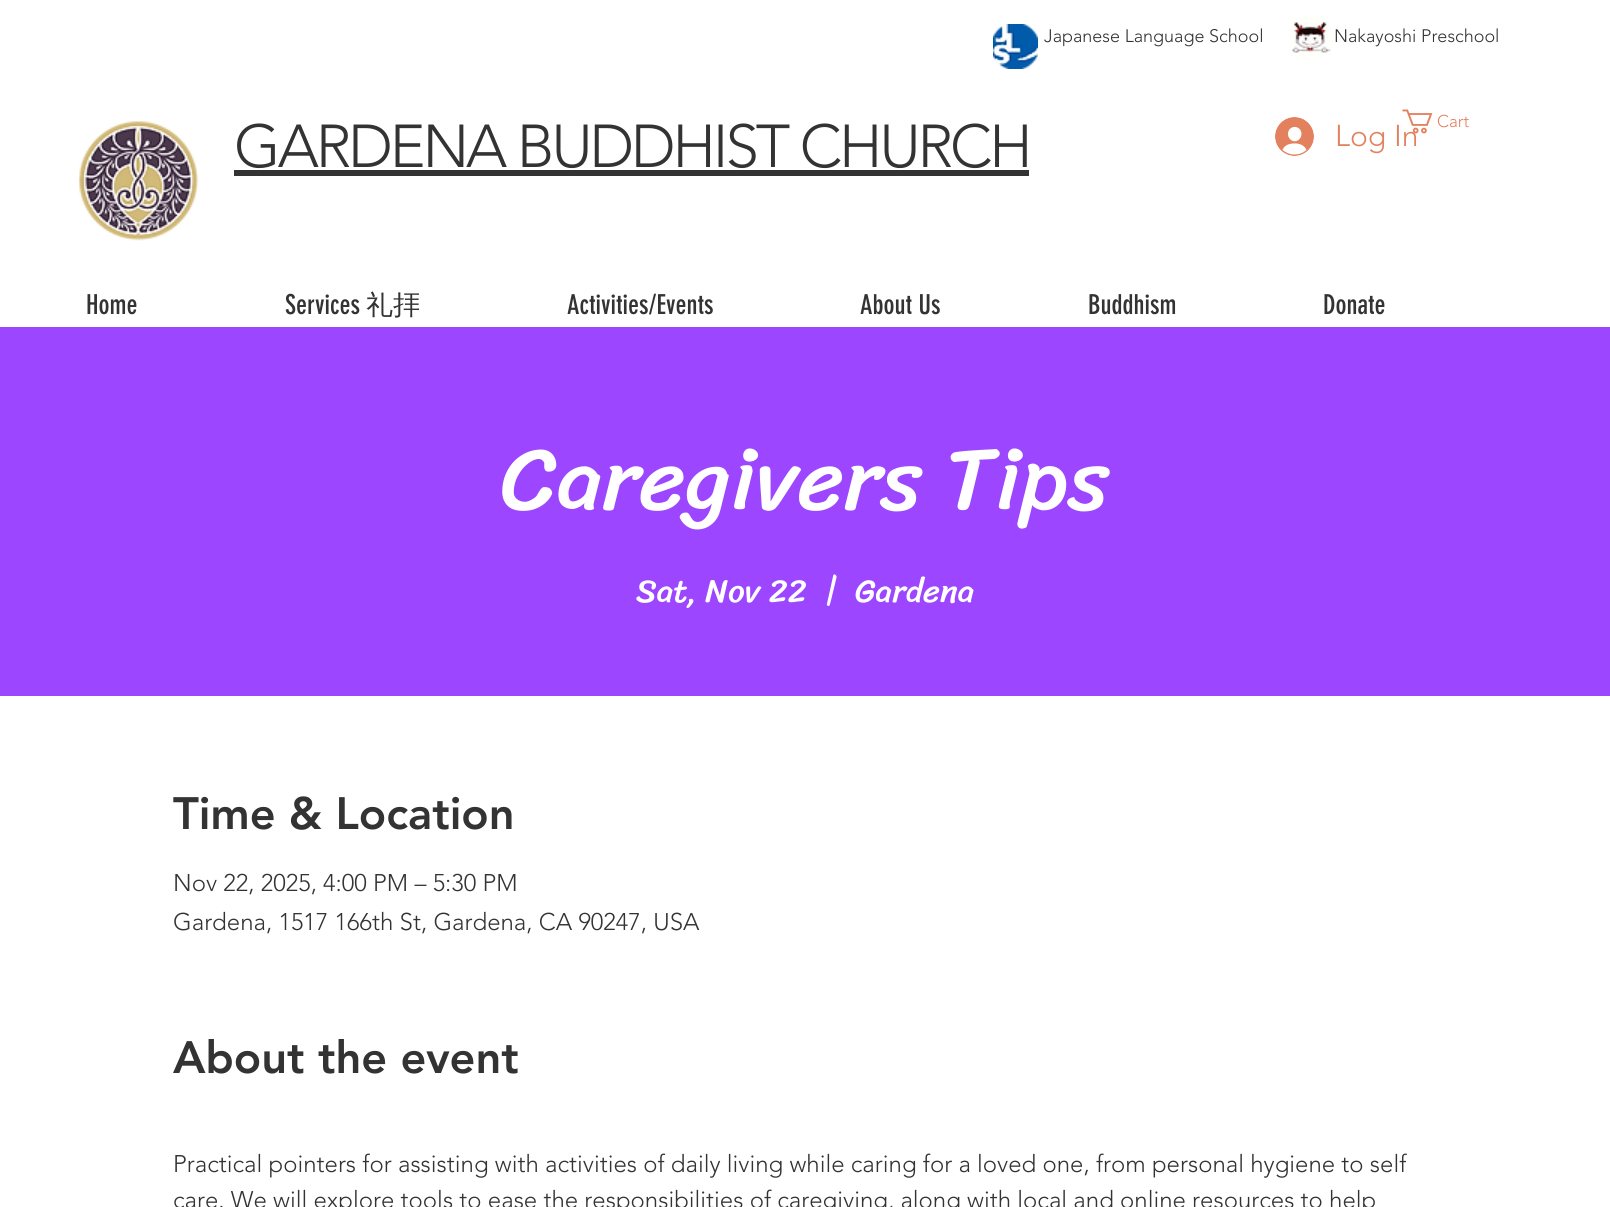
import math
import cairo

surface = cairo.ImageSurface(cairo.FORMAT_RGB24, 1610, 1207)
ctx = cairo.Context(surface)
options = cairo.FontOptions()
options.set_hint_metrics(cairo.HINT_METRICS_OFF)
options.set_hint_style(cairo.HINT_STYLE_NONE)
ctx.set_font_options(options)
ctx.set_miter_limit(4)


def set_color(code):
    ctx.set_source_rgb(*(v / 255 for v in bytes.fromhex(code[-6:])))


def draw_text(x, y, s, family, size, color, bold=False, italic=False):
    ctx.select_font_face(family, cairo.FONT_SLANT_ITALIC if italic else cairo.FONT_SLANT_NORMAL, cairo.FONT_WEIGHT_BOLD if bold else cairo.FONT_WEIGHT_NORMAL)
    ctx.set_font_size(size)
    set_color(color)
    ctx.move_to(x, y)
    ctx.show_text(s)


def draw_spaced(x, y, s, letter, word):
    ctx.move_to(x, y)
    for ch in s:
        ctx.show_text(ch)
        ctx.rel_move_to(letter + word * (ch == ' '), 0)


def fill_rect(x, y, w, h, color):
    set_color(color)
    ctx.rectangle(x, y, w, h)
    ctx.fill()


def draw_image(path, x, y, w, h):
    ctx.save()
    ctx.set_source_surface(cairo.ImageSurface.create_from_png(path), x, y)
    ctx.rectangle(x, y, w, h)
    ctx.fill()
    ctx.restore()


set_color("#ffffff")
ctx.paint()
draw_image("assets/img1.png", 993, 24, 45, 45)
draw_text(1044, 42, "Japanese Language School", "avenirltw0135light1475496 Light", 18, "#333333")
draw_image("assets/img2.png", 1289, 15, 44, 45)
draw_text(1334, 42, "Nakayoshi Preschool", "avenirltw0135light1475496 Light", 18, "#333333")
draw_image("assets/img3.png", 78, 121, 121, 120)
ctx.set_font_size(60)
draw_spaced(234, 167, "GARDENA BUDDHIST CHURCH", -3, 0)
fill_rect(234, 170, 795, 6, "#333333")
draw_image("assets/img4.png", 1275, 117, 39, 39)
draw_text(1335, 146, "Log In", "avenirltw0135light1475496 Light", 30, "#e3815f")
draw_image("assets/img5.png", 1402, 109, 31, 25)
draw_text(1437, 127, "Cart", "avenirltw0135light1475496 Light", 17, "#e3815f")
draw_text(86, 314, "Home", "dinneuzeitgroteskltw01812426", 27, "#333333")
draw_text(285, 314, "Services", "dinneuzeitgroteskltw01812426", 27, "#333333")
draw_text(366, 314, "礼拝", "WenQuanYi Zen Hei Medium", 27, "#333333")
draw_text(567, 314, "Activities/Events", "dinneuzeitgroteskltw01812426", 27, "#333333")
draw_text(860, 314, "About Us", "dinneuzeitgroteskltw01812426", 27, "#333333")
draw_text(1088, 314, "Buddhism", "dinneuzeitgroteskltw01812426", 27, "#333333")
draw_text(1323, 314, "Donate", "dinneuzeitgroteskltw01812426", 27, "#333333")
fill_rect(0, 327, 1610, 369, "#9d46ff")
draw_text(501, 509, "Caregivers Tips", "Sriracha", 90, "#ffffff")
draw_text(636, 602, "Sat, Nov 22", "Sriracha", 33, "#ffffff")
draw_text(824, 602, "|", "Sriracha", 33, "#ffffff")
draw_text(855, 602, "Gardena", "Sriracha", 33, "#ffffff")
draw_text(173, 829, "Time & Location", "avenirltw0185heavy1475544 Black", 45, "#333333")
draw_text(173, 891, "Nov 22, 2025, 4:00 PM – 5:30 PM", "avenirltw0135light1475496 Light", 24, "#333333")
draw_text(173, 930, "Gardena, 1517 166th St, Gardena, CA 90247, USA", "avenirltw0135light1475496 Light", 24, "#333333")
draw_text(173, 1073, "About the event", "avenirltw0185heavy1475544 Black", 45, "#333333")
draw_text(173, 1172, "Practical pointers for assisting with activities of daily living while caring for a loved one, from personal hygiene to self", "avenirltw0135light1475496 Light", 24, "#333333")
draw_text(173, 1208, "care. We will explore tools to ease the responsibilities of caregiving, along with local and online resources to help", "avenirltw0135light1475496 Light", 24, "#333333")
surface.write_to_png("output.png")
